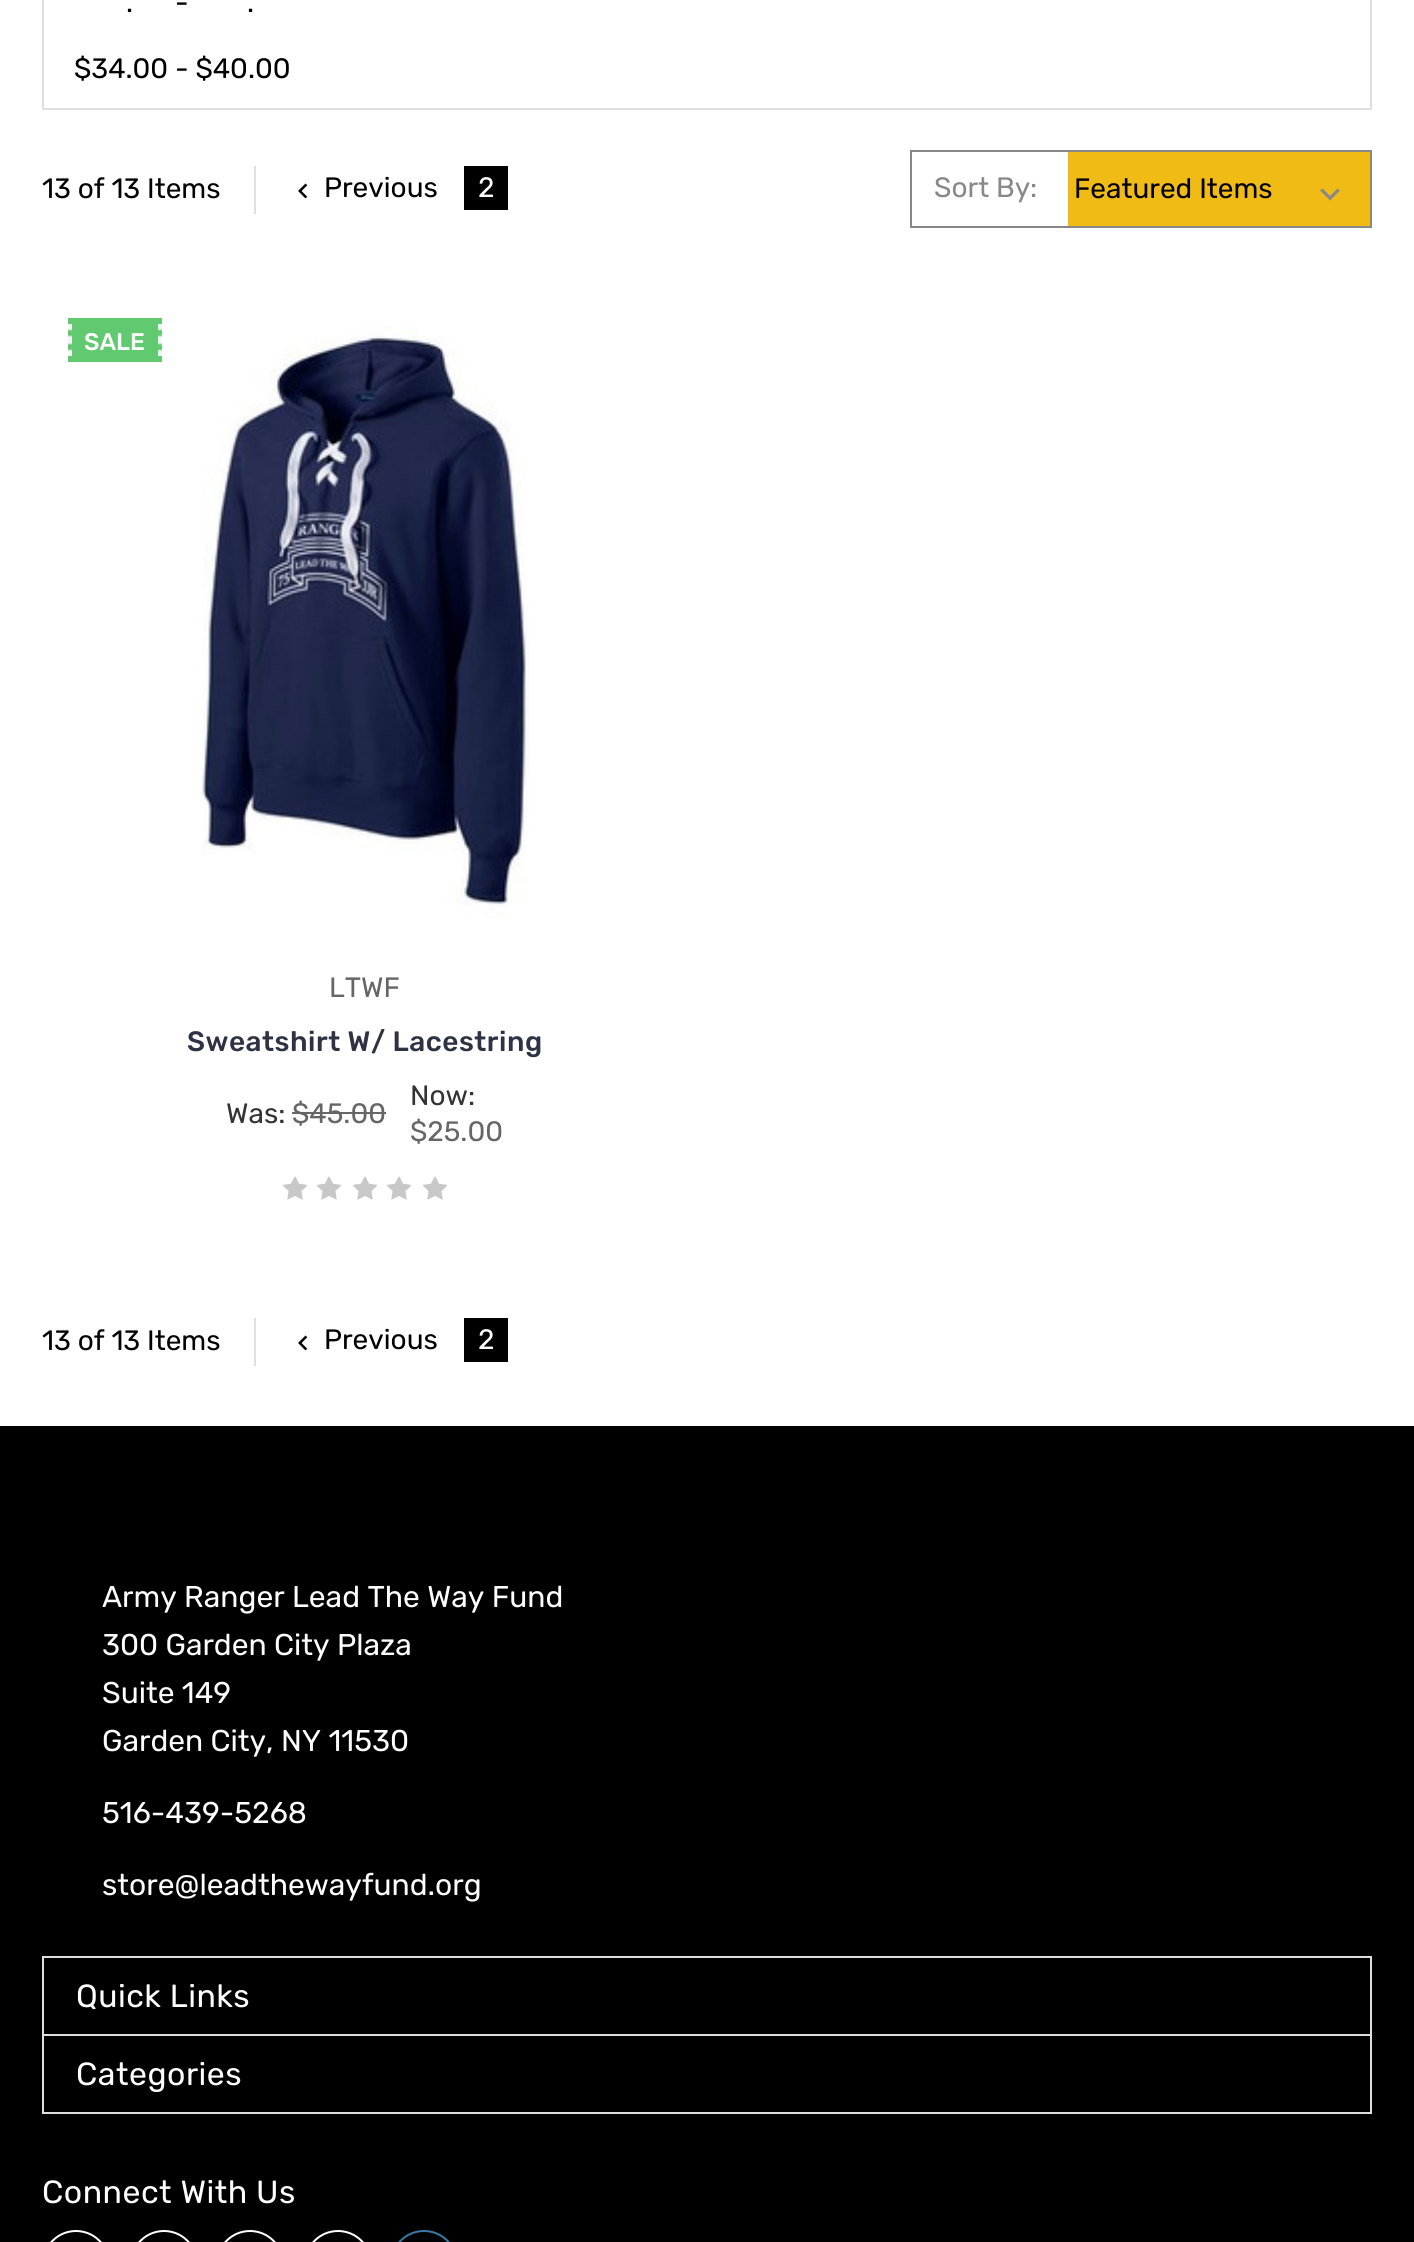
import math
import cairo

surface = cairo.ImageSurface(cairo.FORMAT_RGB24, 1414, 2242)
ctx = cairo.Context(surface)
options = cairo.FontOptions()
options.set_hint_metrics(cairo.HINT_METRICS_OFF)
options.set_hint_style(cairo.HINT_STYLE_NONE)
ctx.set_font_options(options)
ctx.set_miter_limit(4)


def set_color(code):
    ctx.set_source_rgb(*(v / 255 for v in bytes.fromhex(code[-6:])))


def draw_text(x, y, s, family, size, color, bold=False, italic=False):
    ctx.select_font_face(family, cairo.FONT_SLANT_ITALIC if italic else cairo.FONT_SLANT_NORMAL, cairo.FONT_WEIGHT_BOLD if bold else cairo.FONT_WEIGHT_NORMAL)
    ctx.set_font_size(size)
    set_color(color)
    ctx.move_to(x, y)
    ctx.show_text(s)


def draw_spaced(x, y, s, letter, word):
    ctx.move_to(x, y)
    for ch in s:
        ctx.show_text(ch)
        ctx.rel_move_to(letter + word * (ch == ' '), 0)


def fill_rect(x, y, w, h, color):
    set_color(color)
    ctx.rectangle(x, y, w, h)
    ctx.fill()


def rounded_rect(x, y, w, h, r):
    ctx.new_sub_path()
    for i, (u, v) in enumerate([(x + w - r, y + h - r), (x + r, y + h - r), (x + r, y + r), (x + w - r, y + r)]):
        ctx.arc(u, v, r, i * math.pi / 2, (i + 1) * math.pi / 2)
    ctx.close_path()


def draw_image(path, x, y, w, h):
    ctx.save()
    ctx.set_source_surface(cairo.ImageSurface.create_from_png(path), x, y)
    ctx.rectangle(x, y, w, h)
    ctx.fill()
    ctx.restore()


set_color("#ffffff")
ctx.paint()
ctx.rectangle(43, -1, 1328, 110)
set_color("#dfdfdf")
ctx.stroke()
draw_text(175, 12, "-", "Rubik", 28, "#000000")
draw_text(126, 12, ".", "Rubik", 28, "#000000")
draw_text(247, 12, ".", "Rubik", 28, "#000000")
draw_text(74, 78, "$34.00 - $40.00", "Rubik", 28, "#000000")
draw_text(42, 198, "13 of 13 Items", "Rubik", 28, "#000000")
fill_rect(254, 166, 2, 48, "#dfdfdf")
draw_image("assets/img1.png", 298, 183, 10, 16)
draw_text(324, 197, "Previous", "Rubik", 28, "#000000")
fill_rect(464, 166, 44, 44, "#000000")
draw_text(478, 197, "2", "Rubik", 28, "#ffffff")
ctx.rectangle(911, 151, 460, 76)
set_color("#888888")
ctx.stroke()
draw_text(934, 197, "Sort By:", "Rubik", 28, "#888888")
fill_rect(1068, 152, 302, 74, "#f1bb16")
set_color("#888888")
ctx.new_path()
ctx.move_to(1337.5, 188.5)
ctx.line_to(1330, 196)
ctx.line_to(1322.5, 188.5)
ctx.line_to(1320, 190.5)
ctx.line_to(1330, 200.5)
ctx.line_to(1340, 190.5)
ctx.close_path()
ctx.fill()
draw_text(1074, 198, "Featured Items", "Rubik", 28, "#000000")
fill_rect(68, 318, 94, 44, "#61ca70")
draw_image("assets/img2.png", 68, 324, 4, 32)
draw_text(84, 350, "SALE", "Rubik Medium", 24, "#ffffff")
draw_image("assets/img2.png", 158, 324, 4, 32)
draw_image("assets/img3.png", 202, 325, 327, 593)
draw_text(329, 997, "LTWF", "Rubik", 28, "#666666")
ctx.select_font_face("Rubik Medium")
set_color("#2e3344")
draw_spaced(187, 1051, "Sweatshirt W/ Lacestring", 0.5, 0)
draw_text(226, 1123, "Was:", "Rubik", 28, "#333333")
draw_text(292, 1123, "$45.00", "Rubik", 28, "#666666")
fill_rect(292, 1112, 94, 2, "#666666")
draw_text(410, 1105, "Now:", "Rubik", 28, "#333333")
draw_text(410, 1141, "$25.00", "Rubik", 28, "#666666")
draw_image("assets/img4.png", 283, 1176, 24, 24)
draw_image("assets/img4.png", 317, 1176, 24, 24)
draw_image("assets/img4.png", 353, 1176, 24, 24)
draw_image("assets/img4.png", 387, 1176, 24, 24)
draw_image("assets/img4.png", 423, 1176, 24, 24)
draw_text(42, 1350, "13 of 13 Items", "Rubik", 28, "#000000")
fill_rect(254, 1318, 2, 48, "#dfdfdf")
draw_image("assets/img1.png", 298, 1335, 10, 16)
draw_text(324, 1349, "Previous", "Rubik", 28, "#000000")
fill_rect(464, 1318, 44, 44, "#000000")
draw_text(478, 1349, "2", "Rubik", 28, "#ffffff")
fill_rect(0, 1426, 1414, 816, "#000000")
draw_text(102, 1607, "Army Ranger Lead The Way Fund", "Rubik", 30, "#ffffff")
draw_text(102, 1655, "300 Garden City Plaza", "Rubik", 30, "#ffffff")
draw_text(102, 1703, "Suite 149", "Rubik", 30, "#ffffff")
draw_text(102, 1751, "Garden City, NY 11530", "Rubik", 30, "#ffffff")
draw_text(102, 1823, "516-439-5268", "Rubik", 30, "#ffffff")
draw_text(102, 1895, "store@leadthewayfund.org", "Rubik", 30, "#ffffff")
ctx.rectangle(43, 1957, 1328, 78)
set_color("#dfdfdf")
ctx.stroke()
ctx.set_font_size(32)
set_color("#ffffff")
draw_spaced(76, 2007, "Quick Links", 0.5, 0)
ctx.rectangle(43, 2035, 1328, 78)
set_color("#dfdfdf")
ctx.stroke()
set_color("#ffffff")
draw_spaced(76, 2085, "Categories", 0.5, 0)
draw_spaced(42, 2203, "Connect With Us", 0.5, 0)
rounded_rect(43, 2231, 66, 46, 33)
ctx.stroke()
rounded_rect(131, 2231, 66, 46, 33)
ctx.stroke()
rounded_rect(217, 2231, 66, 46, 33)
ctx.stroke()
rounded_rect(305, 2231, 66, 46, 33)
ctx.stroke()
rounded_rect(391, 2231, 66, 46, 33)
set_color("#387ba6")
ctx.stroke()
surface.write_to_png("output.png")
